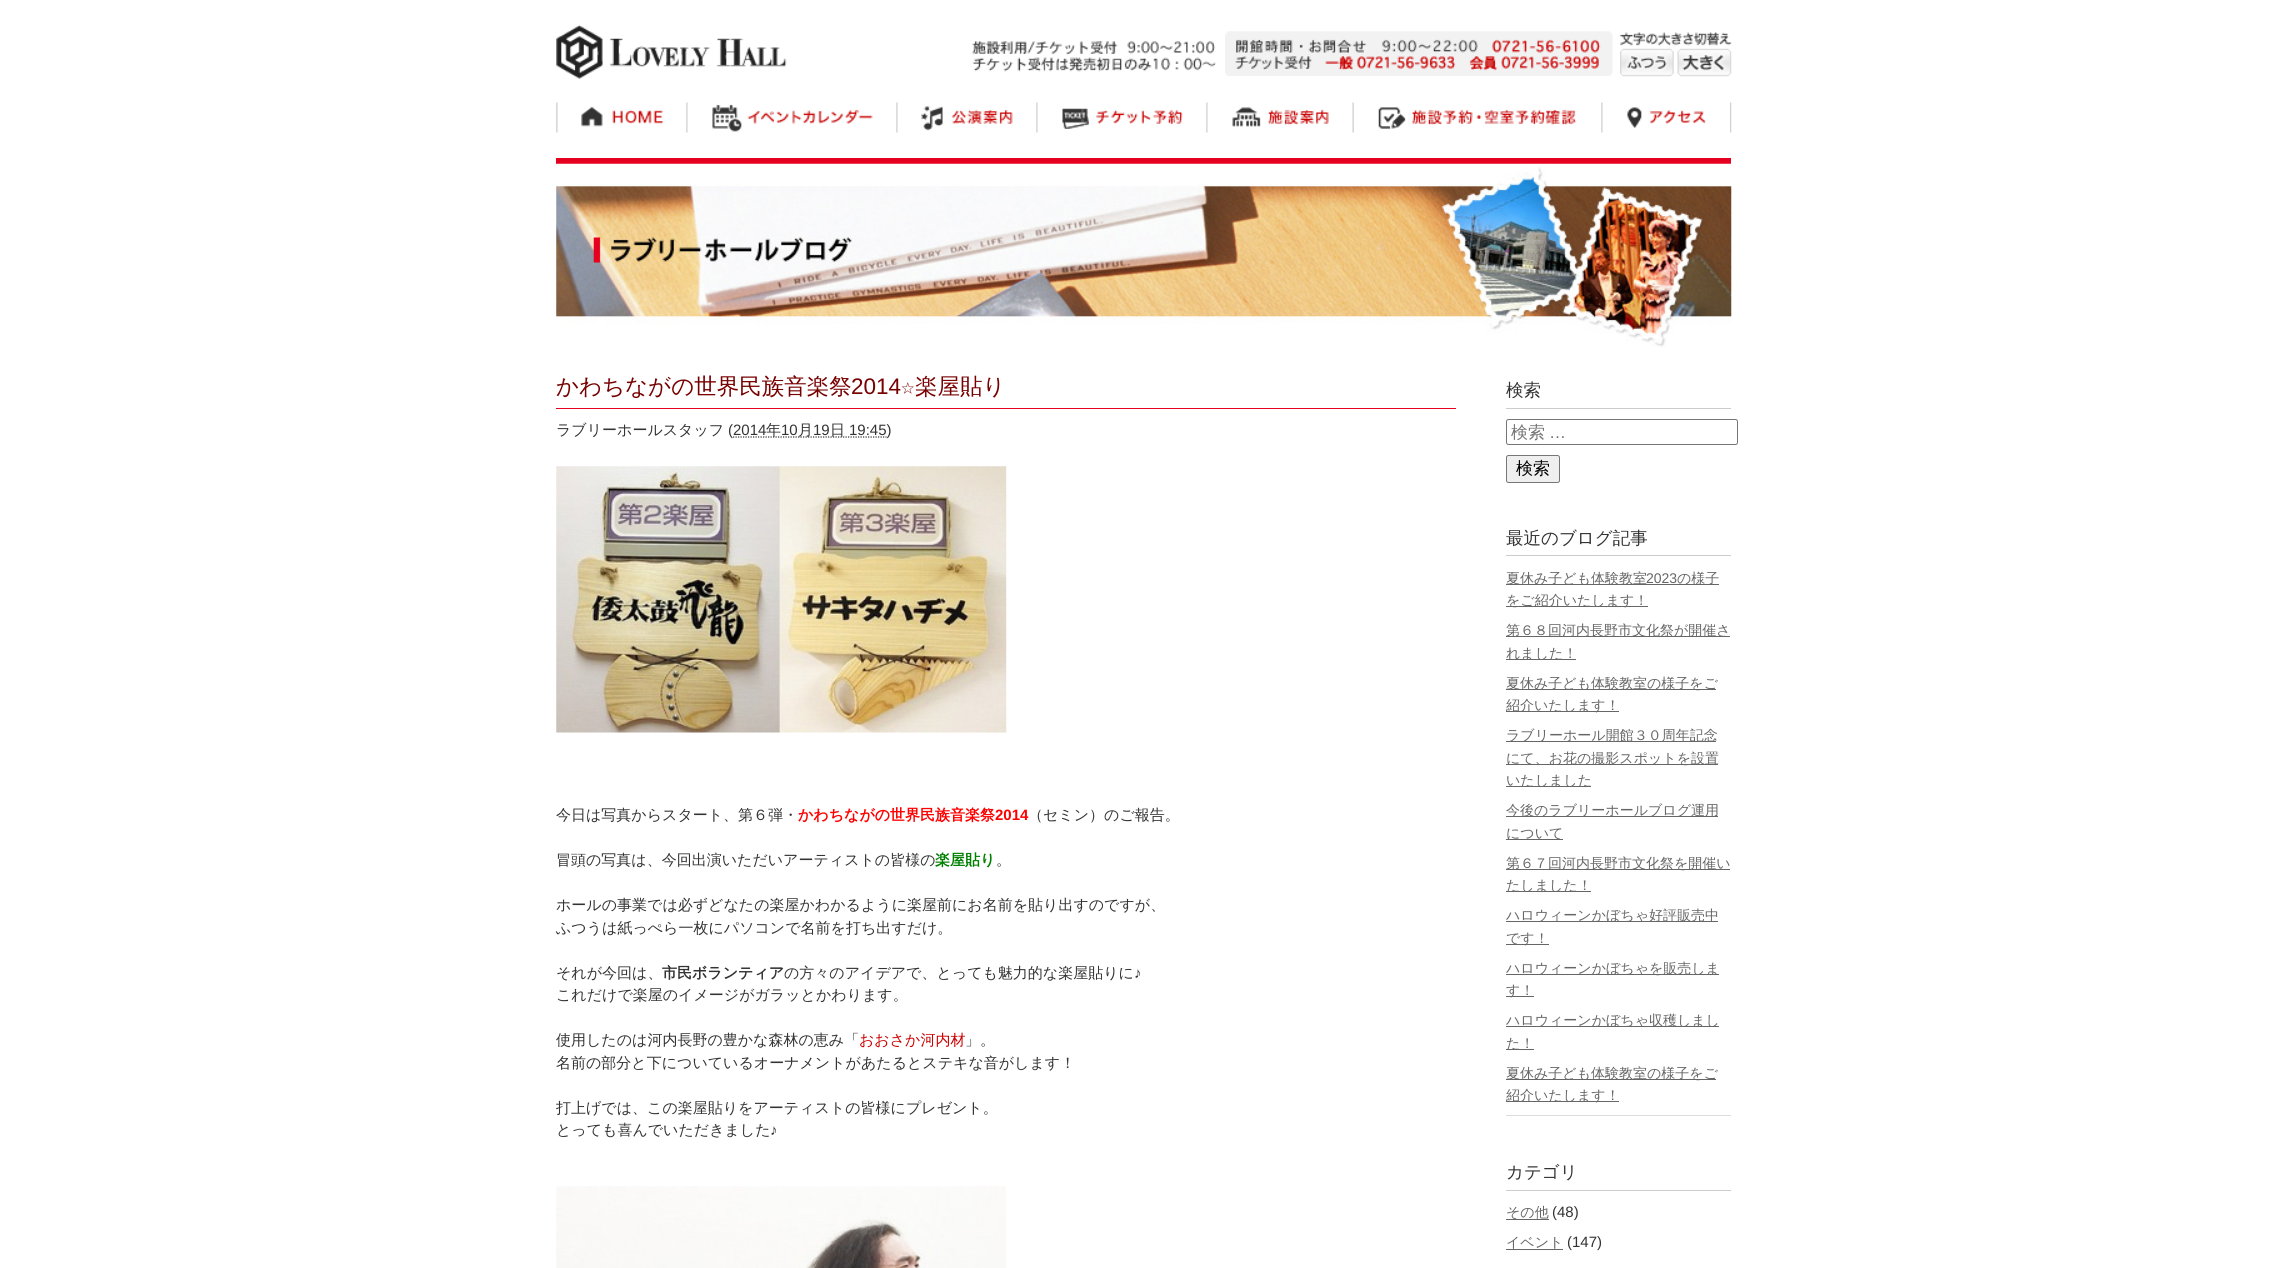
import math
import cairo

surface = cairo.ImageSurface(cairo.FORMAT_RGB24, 2286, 1268)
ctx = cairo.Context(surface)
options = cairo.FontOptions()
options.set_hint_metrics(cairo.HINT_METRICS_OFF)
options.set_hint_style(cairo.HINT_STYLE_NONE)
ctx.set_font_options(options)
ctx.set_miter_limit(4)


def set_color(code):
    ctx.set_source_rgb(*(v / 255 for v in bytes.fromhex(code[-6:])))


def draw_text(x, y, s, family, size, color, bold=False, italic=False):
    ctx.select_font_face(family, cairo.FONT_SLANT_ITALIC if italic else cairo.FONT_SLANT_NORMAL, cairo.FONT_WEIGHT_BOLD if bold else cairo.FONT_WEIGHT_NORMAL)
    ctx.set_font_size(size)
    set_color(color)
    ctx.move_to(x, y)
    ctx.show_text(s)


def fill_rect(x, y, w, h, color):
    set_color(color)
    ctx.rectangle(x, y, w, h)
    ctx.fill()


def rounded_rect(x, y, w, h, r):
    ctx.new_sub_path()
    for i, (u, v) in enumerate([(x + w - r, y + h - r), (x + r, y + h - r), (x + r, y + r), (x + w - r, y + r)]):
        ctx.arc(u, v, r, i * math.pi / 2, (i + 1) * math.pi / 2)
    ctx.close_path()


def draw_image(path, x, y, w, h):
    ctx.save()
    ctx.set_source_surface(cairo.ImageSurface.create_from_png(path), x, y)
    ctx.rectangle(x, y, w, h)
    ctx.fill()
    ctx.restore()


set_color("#ffffff")
ctx.paint()
draw_image("assets/img1.png", 556, 25, 231, 54)
draw_image("assets/img2.png", 972, 41, 244, 31)
draw_image("assets/img3.png", 1225, 31, 388, 45)
draw_image("assets/img4.png", 1620, 32, 112, 14)
draw_image("assets/img5.png", 1620, 48, 54, 29)
draw_image("assets/img6.png", 1677, 48, 55, 29)
draw_image("assets/img7.png", 556, 102, 2, 31)
draw_image("assets/img8.png", 581, 106, 82, 21)
draw_image("assets/img9.png", 686, 102, 2, 31)
draw_image("assets/img10.png", 712, 104, 161, 28)
draw_image("assets/img9.png", 896, 102, 2, 31)
draw_image("assets/img11.png", 921, 106, 92, 25)
draw_image("assets/img9.png", 1036, 102, 2, 31)
draw_image("assets/img12.png", 1062, 108, 121, 21)
draw_image("assets/img9.png", 1206, 102, 2, 31)
draw_image("assets/img13.png", 1232, 107, 97, 20)
draw_image("assets/img14.png", 1352, 102, 2, 31)
draw_image("assets/img15.png", 1378, 107, 199, 22)
draw_image("assets/img9.png", 1601, 102, 2, 31)
draw_image("assets/img16.png", 1627, 107, 79, 21)
draw_image("assets/img17.png", 1730, 102, 2, 31)
fill_rect(556, 158, 1175, 6, "#e60020")
draw_image("assets/img18.png", 556, 163, 1176, 184)
fill_rect(556, 408, 900, 1, "#e70120")
draw_text(556, 394, "かわちながの世界民族音楽祭", "WenQuanYi Zen Hei Medium", 22.5, "#770000")
draw_text(851, 394, "2014", "Liberation Sans", 22.5, "#770000")
draw_text(901, 394, "☆", "DejaVu Sans Mono", 22.5, "#770000")
draw_text(915, 394, "楽屋貼り", "WenQuanYi Zen Hei Medium", 22.5, "#770000")
draw_text(556, 435, "ラブリーホールスタッフ", "WenQuanYi Zen Hei Medium", 15, "#333333")
draw_text(728, 435, "(2014", "Liberation Sans", 15, "#333333")
ctx.new_path()
ctx.move_to(733, 437)
ctx.line_to(886.5, 437)
ctx.set_line_width(1.2)
ctx.set_dash([1.25, 1.25])
ctx.stroke()
draw_text(766, 435, "年", "WenQuanYi Zen Hei Medium", 15, "#333333")
draw_text(781, 435, "10", "Liberation Sans", 15, "#333333")
draw_text(798, 435, "月", "WenQuanYi Zen Hei Medium", 15, "#333333")
draw_text(813, 435, "19", "Liberation Sans", 15, "#333333")
draw_text(830, 435, "日", "WenQuanYi Zen Hei Medium", 15, "#333333")
draw_text(849, 435, "19:45)", "Liberation Sans", 15, "#333333")
draw_image("assets/img19.png", 556, 466, 451, 267)
draw_text(556, 820, "今日は写真からスタート、第６弾・", "WenQuanYi Zen Hei Medium", 15, "#333333")
draw_text(798, 820, "かわちながの世界民族音楽祭", "WenQuanYi Zen Hei", 15, "#ff0000", bold=True)
draw_text(995, 820, "2014", "Liberation Sans", 15, "#ff0000", bold=True)
draw_text(1028, 820, "（セミン）のご報告。", "WenQuanYi Zen Hei Medium", 15, "#333333")
draw_text(556, 865, "冒頭の写真は、今回出演いただいアーティストの皆様の", "WenQuanYi Zen Hei Medium", 15, "#333333")
draw_text(935, 865, "楽屋貼り", "WenQuanYi Zen Hei", 15, "#008000", bold=True)
draw_text(996, 865, "。", "WenQuanYi Zen Hei Medium", 15, "#333333")
draw_text(556, 910, "ホールの事業では必ずどなたの楽屋かわかるように楽屋前にお名前を貼り出すのですが、", "WenQuanYi Zen Hei Medium", 15, "#333333")
draw_text(556, 933, "ふつうは紙っぺら一枚にパソコンで名前を打ち出すだけ。", "WenQuanYi Zen Hei Medium", 15, "#333333")
draw_text(556, 978, "それが今回は、", "WenQuanYi Zen Hei Medium", 15, "#333333")
draw_text(662, 978, "市民ボランティア", "WenQuanYi Zen Hei", 15, "#333333", bold=True)
draw_text(784, 978, "の方々のアイデアで、とっても魅力的な楽屋貼りに", "WenQuanYi Zen Hei Medium", 15, "#333333")
draw_text(1134, 978, "♪", "Liberation Sans", 15, "#333333")
draw_text(556, 1000, "これだけで楽屋のイメージがガラッとかわります。", "WenQuanYi Zen Hei Medium", 15, "#333333")
draw_text(556, 1045, "使用したのは河内長野の豊かな森林の恵み「", "WenQuanYi Zen Hei Medium", 15, "#333333")
draw_text(859, 1045, "おおさか河内材", "WenQuanYi Zen Hei Medium", 15, "#cc0000")
draw_text(965, 1045, "」。", "WenQuanYi Zen Hei Medium", 15, "#333333")
draw_text(556, 1068, "名前の部分と下についているオーナメントがあたるとステキな音がします！", "WenQuanYi Zen Hei Medium", 15, "#333333")
draw_text(556, 1113, "打上げでは、この楽屋貼りをアーティストの皆様にプレゼント。", "WenQuanYi Zen Hei Medium", 15, "#333333")
draw_text(556, 1135, "とっても喜んでいただきました", "WenQuanYi Zen Hei Medium", 15, "#333333")
draw_text(770, 1135, "♪", "Liberation Sans", 15, "#333333")
draw_image("assets/img20.png", 556, 1186, 450, 82)
fill_rect(1506, 408, 225, 1, "#cccccc")
draw_text(1506, 396, "検索", "WenQuanYi Zen Hei Medium", 17.5, "#333333")
rounded_rect(1506.5, 419.5, 231, 25, 2)
set_color("#767676")
ctx.set_line_width(1)
ctx.set_dash([])
ctx.stroke()
draw_text(1511, 438, "検索", "WenQuanYi Zen Hei Medium", 17, "#757575")
draw_text(1549, 438, "…", "Liberation Sans", 17, "#757575")
set_color("#efefef")
rounded_rect(1506.5, 455.5, 53, 27, 2)
ctx.fill_preserve()
set_color("#767676")
ctx.stroke()
draw_text(1516, 474, "検索", "WenQuanYi Zen Hei Medium", 17, "#000000")
fill_rect(1506, 555, 225, 1, "#cccccc")
draw_text(1506, 544, "最近のブログ記事", "WenQuanYi Zen Hei Medium", 17.5, "#333333")
fill_rect(1506, 1115, 225, 1, "#dddddd")
fill_rect(1506, 584, 213, 1, "#666666")
draw_text(1506, 583, "夏休み子ども体験教室", "WenQuanYi Zen Hei Medium", 14, "#666666")
draw_text(1646, 583, "2023", "Liberation Sans", 14, "#666666")
draw_text(1677, 583, "の様子", "WenQuanYi Zen Hei Medium", 14, "#666666")
fill_rect(1506, 606, 142, 1, "#666666")
draw_text(1506, 605, "をご紹介いたします！", "WenQuanYi Zen Hei Medium", 14, "#666666")
fill_rect(1506, 636, 224, 1, "#666666")
draw_text(1506, 635, "第６８回河内長野市文化祭が開催さ", "WenQuanYi Zen Hei Medium", 14, "#666666")
fill_rect(1506, 659, 70, 1, "#666666")
draw_text(1506, 658, "れました！", "WenQuanYi Zen Hei Medium", 14, "#666666")
fill_rect(1506, 689, 210, 1, "#666666")
draw_text(1506, 688, "夏休み子ども体験教室の様子をご", "WenQuanYi Zen Hei Medium", 14, "#666666")
fill_rect(1506, 711, 113, 1, "#666666")
draw_text(1506, 710, "紹介いたします！", "WenQuanYi Zen Hei Medium", 14, "#666666")
fill_rect(1506, 741, 210, 1, "#666666")
draw_text(1506, 740, "ラブリーホール開館３０周年記念", "WenQuanYi Zen Hei Medium", 14, "#666666")
fill_rect(1506, 764, 212, 1, "#666666")
draw_text(1506, 763, "にて、お花の撮影スポットを設置", "WenQuanYi Zen Hei Medium", 14, "#666666")
fill_rect(1506, 786, 85, 1, "#666666")
draw_text(1506, 785, "いたしました", "WenQuanYi Zen Hei Medium", 14, "#666666")
fill_rect(1506, 816, 212, 1, "#666666")
draw_text(1506, 815, "今後のラブリーホールブログ運用", "WenQuanYi Zen Hei Medium", 14, "#666666")
fill_rect(1506, 839, 57, 1, "#666666")
draw_text(1506, 838, "について", "WenQuanYi Zen Hei Medium", 14, "#666666")
fill_rect(1506, 869, 224, 1, "#666666")
draw_text(1506, 868, "第６７回河内長野市文化祭を開催い", "WenQuanYi Zen Hei Medium", 14, "#666666")
fill_rect(1506, 891, 85, 1, "#666666")
draw_text(1506, 890, "たしました！", "WenQuanYi Zen Hei Medium", 14, "#666666")
fill_rect(1506, 921, 212, 1, "#666666")
draw_text(1506, 920, "ハロウィーンかぼちゃ好評販売中", "WenQuanYi Zen Hei Medium", 14, "#666666")
fill_rect(1506, 944, 43, 1, "#666666")
draw_text(1506, 943, "です！", "WenQuanYi Zen Hei Medium", 14, "#666666")
fill_rect(1506, 974, 213, 1, "#666666")
draw_text(1506, 973, "ハロウィーンかぼちゃを販売しま", "WenQuanYi Zen Hei Medium", 14, "#666666")
fill_rect(1506, 996, 28, 1, "#666666")
draw_text(1506, 995, "す！", "WenQuanYi Zen Hei Medium", 14, "#666666")
fill_rect(1506, 1026, 213, 1, "#666666")
draw_text(1506, 1025, "ハロウィーンかぼちゃ収穫しまし", "WenQuanYi Zen Hei Medium", 14, "#666666")
fill_rect(1506, 1049, 28, 1, "#666666")
draw_text(1506, 1048, "た！", "WenQuanYi Zen Hei Medium", 14, "#666666")
fill_rect(1506, 1079, 210, 1, "#666666")
draw_text(1506, 1078, "夏休み子ども体験教室の様子をご", "WenQuanYi Zen Hei Medium", 14, "#666666")
fill_rect(1506, 1101, 113, 1, "#666666")
draw_text(1506, 1100, "紹介いたします！", "WenQuanYi Zen Hei Medium", 14, "#666666")
fill_rect(1506, 1190, 225, 1, "#cccccc")
draw_text(1506, 1178, "カテゴリ", "WenQuanYi Zen Hei Medium", 17.5, "#333333")
fill_rect(1506, 1219, 43, 1, "#666666")
draw_text(1506, 1217, "その他", "WenQuanYi Zen Hei Medium", 14, "#666666")
draw_text(1552, 1217, "(48)", "Liberation Sans", 15, "#333333")
draw_text(1506, 1247, "イベント", "WenQuanYi Zen Hei Medium", 14, "#666666")
fill_rect(1506, 1249, 57, 1, "#666666")
draw_text(1567, 1247, "(147)", "Liberation Sans", 15, "#333333")
surface.write_to_png("output.png")
